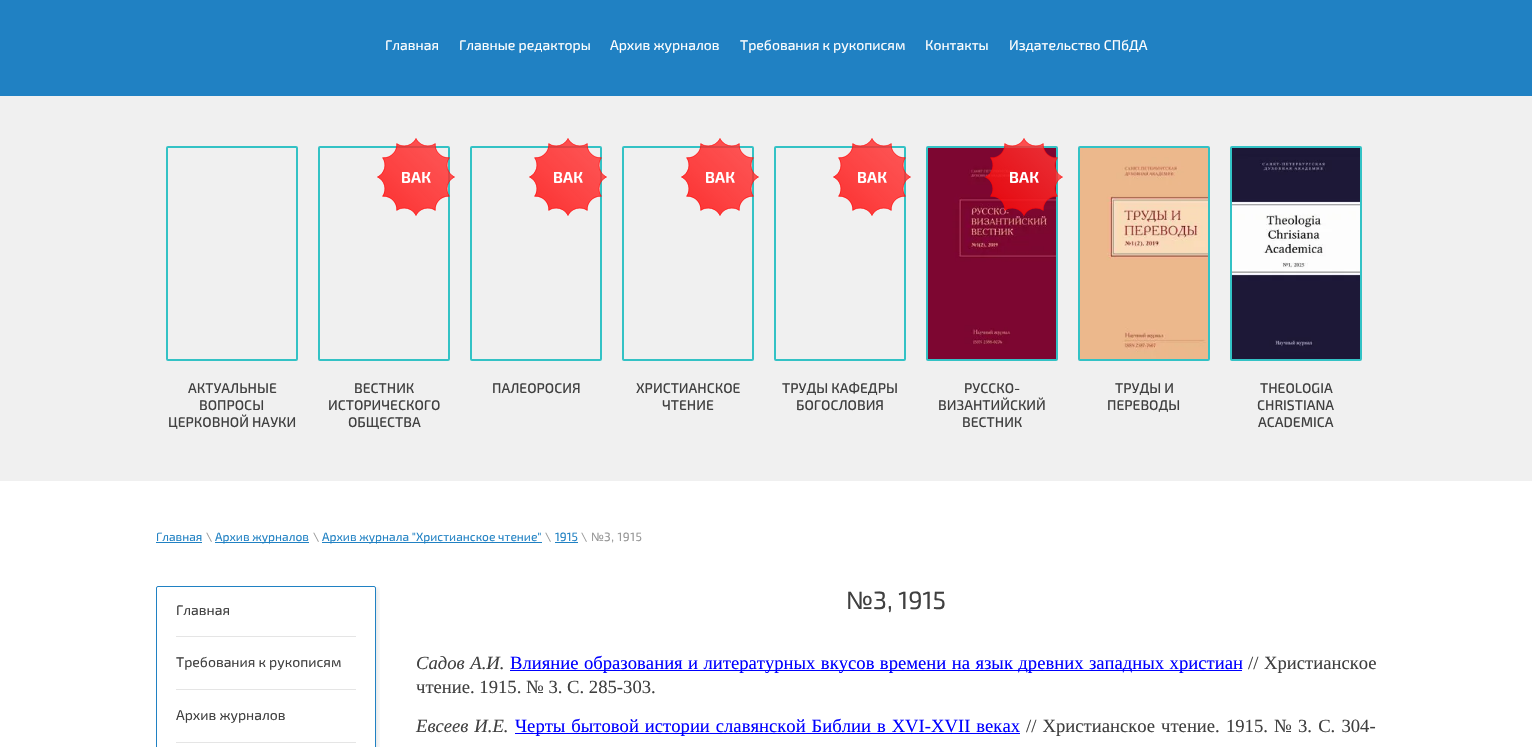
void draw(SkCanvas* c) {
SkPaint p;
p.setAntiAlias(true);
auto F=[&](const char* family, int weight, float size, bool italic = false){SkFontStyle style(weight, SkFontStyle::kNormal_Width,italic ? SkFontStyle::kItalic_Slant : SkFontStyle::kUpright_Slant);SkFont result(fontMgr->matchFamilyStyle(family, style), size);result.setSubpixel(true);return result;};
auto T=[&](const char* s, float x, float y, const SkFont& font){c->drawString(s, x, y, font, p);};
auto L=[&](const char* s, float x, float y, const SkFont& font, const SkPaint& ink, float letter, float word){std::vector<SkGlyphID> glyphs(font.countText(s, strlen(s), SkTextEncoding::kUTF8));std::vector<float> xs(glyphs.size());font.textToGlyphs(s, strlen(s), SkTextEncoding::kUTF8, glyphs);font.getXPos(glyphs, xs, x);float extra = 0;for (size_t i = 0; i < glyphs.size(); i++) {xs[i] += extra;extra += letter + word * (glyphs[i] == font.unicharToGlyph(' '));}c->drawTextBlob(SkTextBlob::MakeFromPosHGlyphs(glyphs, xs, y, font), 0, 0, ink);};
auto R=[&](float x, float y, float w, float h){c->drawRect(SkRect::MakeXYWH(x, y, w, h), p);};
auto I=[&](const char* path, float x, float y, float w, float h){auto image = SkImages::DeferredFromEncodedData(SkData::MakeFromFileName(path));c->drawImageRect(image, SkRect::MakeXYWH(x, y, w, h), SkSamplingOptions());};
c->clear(0xffffffff);
p.setColor(0xff2081c3);
R(0,0,1532,96);
auto f1 = F("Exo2",400,14);
p.setColor(0xffffffff);
T("Главная",385,50,f1);
T("Главные редакторы",459,50,f1);
T("Архив журналов",610,50,f1);
T("Требования к рукописям",740,50,f1);
T("Контакты",925,50,f1);
T("Издательство СПбДА",1009,50,f1);
p.setColor(0xfff0f0f0);
R(0,96,1532,385);
p.setStroke(true);
p.setStrokeWidth(2);
p.setColor(0xff33c2c5);
c->drawRoundRect(SkRect::MakeXYWH(167,147,130,213),1,1,p);
auto f2 = F("Exo 2",500,14);
p.setStroke(false);
p.setColor(0xff404040);
T("АКТУАЛЬНЫЕ",188,393,f2);
T("ВОПРОСЫ",199,410,f2);
T("ЦЕРКОВНОЙ НАУКИ",168,427,f2);
p.setStroke(true);
p.setColor(0xff33c2c5);
c->drawRoundRect(SkRect::MakeXYWH(319,147,130,213),1,1,p);
I("1.png",377,138,78,78);
p.setStroke(false);
p.setColor(0xff404040);
T("ВЕСТНИК",354,393,f2);
T("ИСТОРИЧЕСКОГО",328,410,f2);
T("ОБЩЕСТВА",348,427,f2);
p.setStroke(true);
p.setColor(0xff33c2c5);
c->drawRoundRect(SkRect::MakeXYWH(471,147,130,213),1,1,p);
I("1.png",529,138,78,78);
p.setStroke(false);
p.setColor(0xff404040);
T("ПАЛЕОРОСИЯ",492,393,f2);
p.setStroke(true);
p.setColor(0xff33c2c5);
c->drawRoundRect(SkRect::MakeXYWH(623,147,130,213),1,1,p);
I("1.png",681,138,78,78);
p.setStroke(false);
p.setColor(0xff404040);
T("ХРИСТИАНСКОЕ",636,393,f2);
T("ЧТЕНИЕ",662,410,f2);
p.setStroke(true);
p.setColor(0xff33c2c5);
c->drawRoundRect(SkRect::MakeXYWH(775,147,130,213),1,1,p);
I("1.png",833,138,78,78);
p.setStroke(false);
p.setColor(0xff404040);
T("ТРУДЫ КАФЕДРЫ",782,393,f2);
T("БОГОСЛОВИЯ",796,410,f2);
p.setStroke(true);
p.setColor(0xff33c2c5);
c->drawRoundRect(SkRect::MakeXYWH(927,147,130,213),1,1,p);
I("3.png",928,148,128,211);
I("2.png",985,138,78,78);
p.setStroke(false);
p.setColor(0xff404040);
T("РУССКО-",964,393,f2);
T("ВИЗАНТИЙСКИЙ",938,410,f2);
T("ВЕСТНИК",962,427,f2);
p.setStroke(true);
p.setColor(0xff33c2c5);
c->drawRoundRect(SkRect::MakeXYWH(1079,147,130,213),1,1,p);
I("4.png",1080,148,128,211);
p.setStroke(false);
p.setColor(0xff404040);
T("ТРУДЫ И",1115,393,f2);
T("ПЕРЕВОДЫ",1107,410,f2);
p.setStroke(true);
p.setColor(0xff33c2c5);
c->drawRoundRect(SkRect::MakeXYWH(1231,147,130,213),1,1,p);
I("5.png",1232,148,128,211);
p.setStroke(false);
p.setColor(0xff404040);
T("THEOLOGIA",1260,393,f2);
T("CHRISTIANA",1257,410,f2);
T("ACADEMICA",1258,427,f2);
auto f3 = F("Exo2",400,12);
p.setColor(0xff2081c3);
T("Главная",156,541,f3);
R(156,542,46,1);
p.setColor(0xff959595);
L("\\",206,541,f3,p,.5,0);
p.setColor(0xff2081c3);
R(215,542,94,1);
T("Архив журналов",215,541,f3);
p.setColor(0xff959595);
L("\\",313,541,f3,p,.5,0);
p.setColor(0xff2081c3);
R(322,542,220,1);
T("Архив журнала \"Христианское чтение\"",322,541,f3);
p.setColor(0xff959595);
L("\\",545,541,f3,p,.5,0);
p.setColor(0xff2081c3);
T("1915",555,541,f3);
R(555,542,23,1);
p.setColor(0xff959595);
L("\\",581,541,f3,p,.5,0);
auto f4 = F("Liberation Sans",400,12);
L("№",591,541,f4,p,.5,0);
L("3, 1915",604,541,f3,p,.5,0);
c->save();
c->clipRect(SkRect::MakeXYWH(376,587,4,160));
p.setColor(0x1a000000);
p.setMaskFilter(SkMaskFilter::MakeBlur(kNormal_SkBlurStyle, 2.5));
c->drawRoundRect(SkRect::MakeXYWH(158,588,220,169),2,2,p);
p.setMaskFilter(nullptr);
c->restore();
p.setStroke(true);
p.setStrokeWidth(1);
p.setColor(0xff2081c3);
c->drawRoundRect(SkRect::MakeXYWH(156.5,586.5,219,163),1.5,1.5,p);
p.setStroke(false);
p.setColor(0xff404040);
T("Главная",176,615,f1);
p.setColor(0xffe5e5e5);
R(176,636,180,1);
p.setColor(0xff404040);
T("Требования к рукописям",176,667,f1);
p.setColor(0xffe5e5e5);
R(176,689,180,1);
p.setColor(0xff404040);
T("Архив журналов",176,720,f1);
p.setColor(0xffe5e5e5);
R(176,742,180,1);
auto f5 = F("Liberation Sans",400,25);
p.setColor(0xff404040);
T("№",846,609,f5);
auto f6 = F("Exo2",400,25);
T("3, 1915",873,609,f6);
auto f7 = F("Liberation Serif",400,18.65,true);
L("Садов А.И.",416,669,f7,p,0,1);
p.setColor(0xff0000ff);
R(510,670,732,1);
auto f8 = F("Liberation Serif",400,18.65);
L("Влияние образования и литературных вкусов времени на язык древних западных христиан",510,669,f8,p,0,.75);
p.setColor(0xff404040);
L("// Христианское",1248,669,f8,p,0,1);
T("чтение. 1915. № 3. С. 285-303.",416,693,f8);
L("Евсеев И.Е.",416,732,f7,p,0,1.25);
p.setColor(0xff0000ff);
R(515,733,505,1);
L("Черты бытовой истории славянской Библии в XVI-XVII веках",515,732,f8,p,0,1.25);
p.setColor(0xff404040);
L("// Христианское чтение. 1915. № 3. С. 304-",1026,732,f8,p,0,1.5);
}
